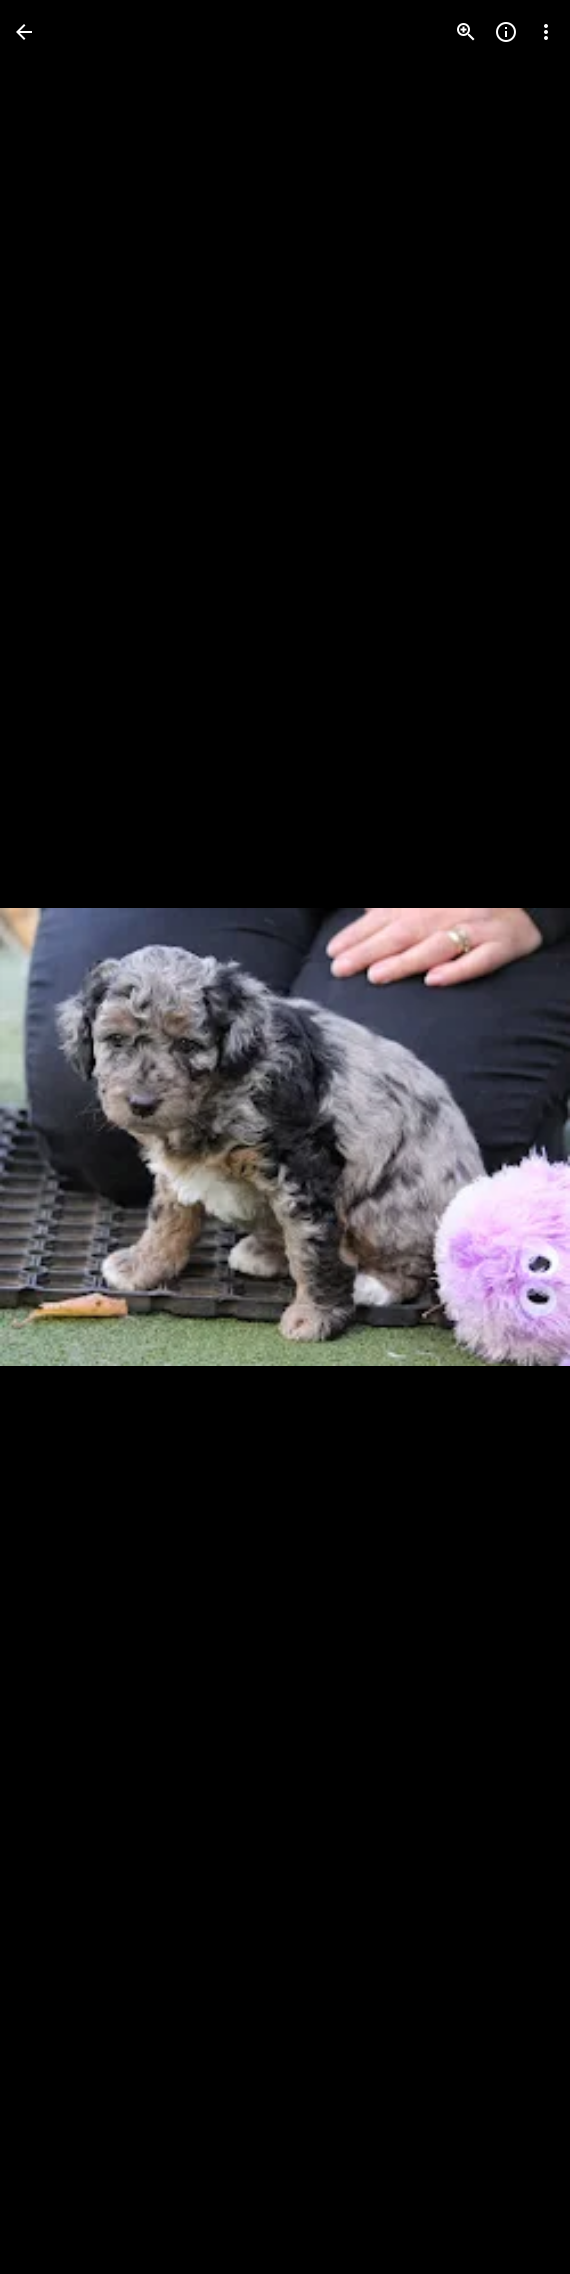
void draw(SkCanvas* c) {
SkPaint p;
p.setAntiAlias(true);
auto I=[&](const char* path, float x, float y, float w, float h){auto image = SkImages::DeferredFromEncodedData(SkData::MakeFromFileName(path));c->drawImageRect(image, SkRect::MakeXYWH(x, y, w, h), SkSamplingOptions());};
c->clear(0xff000000);
I("1.png",16,24,16,16);
I("2.png",457,23,18,18);
I("3.png",496,22,20,20);
I("4.png",544,24,4,16);
I("5.png",0,908,570,458);
}
